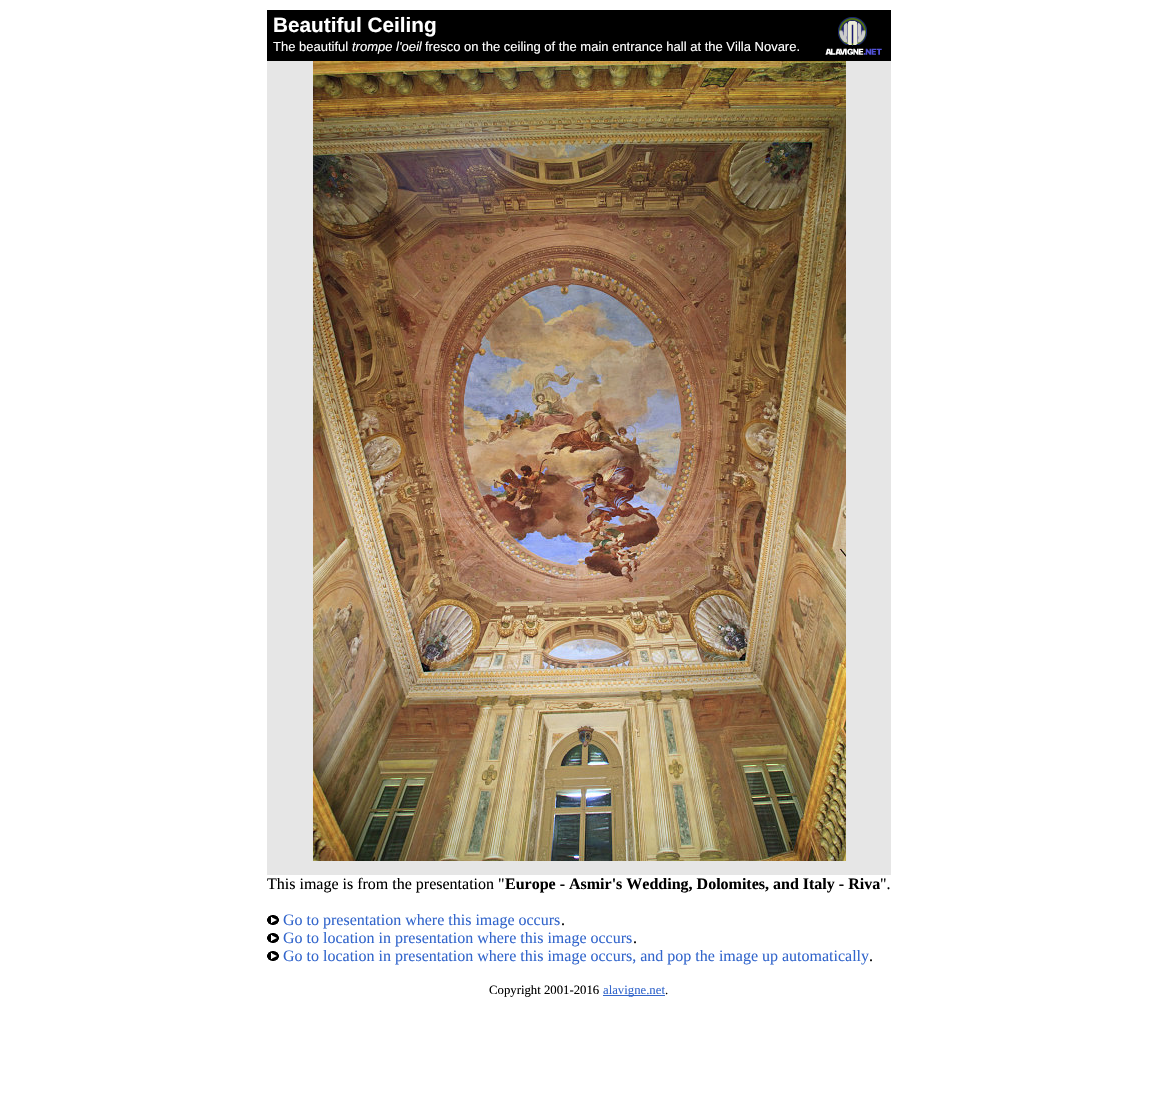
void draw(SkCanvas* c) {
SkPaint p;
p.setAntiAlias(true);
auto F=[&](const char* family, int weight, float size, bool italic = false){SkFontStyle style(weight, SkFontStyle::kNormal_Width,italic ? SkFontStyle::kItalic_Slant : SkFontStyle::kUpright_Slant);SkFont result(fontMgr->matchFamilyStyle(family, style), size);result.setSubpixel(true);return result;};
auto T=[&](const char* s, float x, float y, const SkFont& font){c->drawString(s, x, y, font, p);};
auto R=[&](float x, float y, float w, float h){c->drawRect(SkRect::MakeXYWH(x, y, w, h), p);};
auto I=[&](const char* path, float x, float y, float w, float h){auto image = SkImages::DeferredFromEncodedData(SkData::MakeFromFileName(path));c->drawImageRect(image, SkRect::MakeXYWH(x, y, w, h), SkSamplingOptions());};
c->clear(0xffffffff);
p.setColor(0xff000000);
R(267,10,624,51);
auto f1 = F("Liberation Sans",700,20.75);
p.setColor(0xffffffff);
T("Beautiful Ceiling",273,32,f1);
I("1.png",825,17,57,38);
auto f2 = F("Liberation Sans",400,13);
T("The beautiful",273,51,f2);
auto f3 = F("Liberation Sans",400,13,true);
T("trompe l'oeil",352,51,f3);
T("fresco on the ceiling of the main entrance hall at the Villa Novare.",425,51,f2);
p.setColor(0xffe6e6e6);
R(267,61,624,814);
I("2.png",313,61,533,800);
auto f4 = F("Liberation Serif",400,16);
p.setColor(0xff000000);
T("This image is from the presentation \"",267,889,f4);
auto f5 = F("Liberation Serif",700,16);
T("Europe - Asmir's Wedding, Dolomites, and Italy - Riva",505,889,f5);
T("\".",880,889,f4);
I("3.png",267,915,12,10);
p.setColor(0xff3366cc);
T("Go to presentation where this image occurs",283,925,f4);
p.setColor(0xff000000);
T(".",561,925,f4);
I("3.png",267,933,12,10);
p.setColor(0xff3366cc);
T("Go to location in presentation where this image occurs",283,943,f4);
p.setColor(0xff000000);
T(".",633,943,f4);
I("3.png",267,951,12,10);
p.setColor(0xff3366cc);
T("Go to location in presentation where this image occurs, and pop the image up automatically",283,961,f4);
p.setColor(0xff000000);
T(".",869,961,f4);
auto f6 = F("Liberation Serif",400,12.75);
T("Copyright 2001-2016",489,994,f6);
p.setColor(0xff3366cc);
R(603,995,62,1);
T("alavigne.net",603,994,f6);
p.setColor(0xff000000);
T(".",665,994,f6);
}
